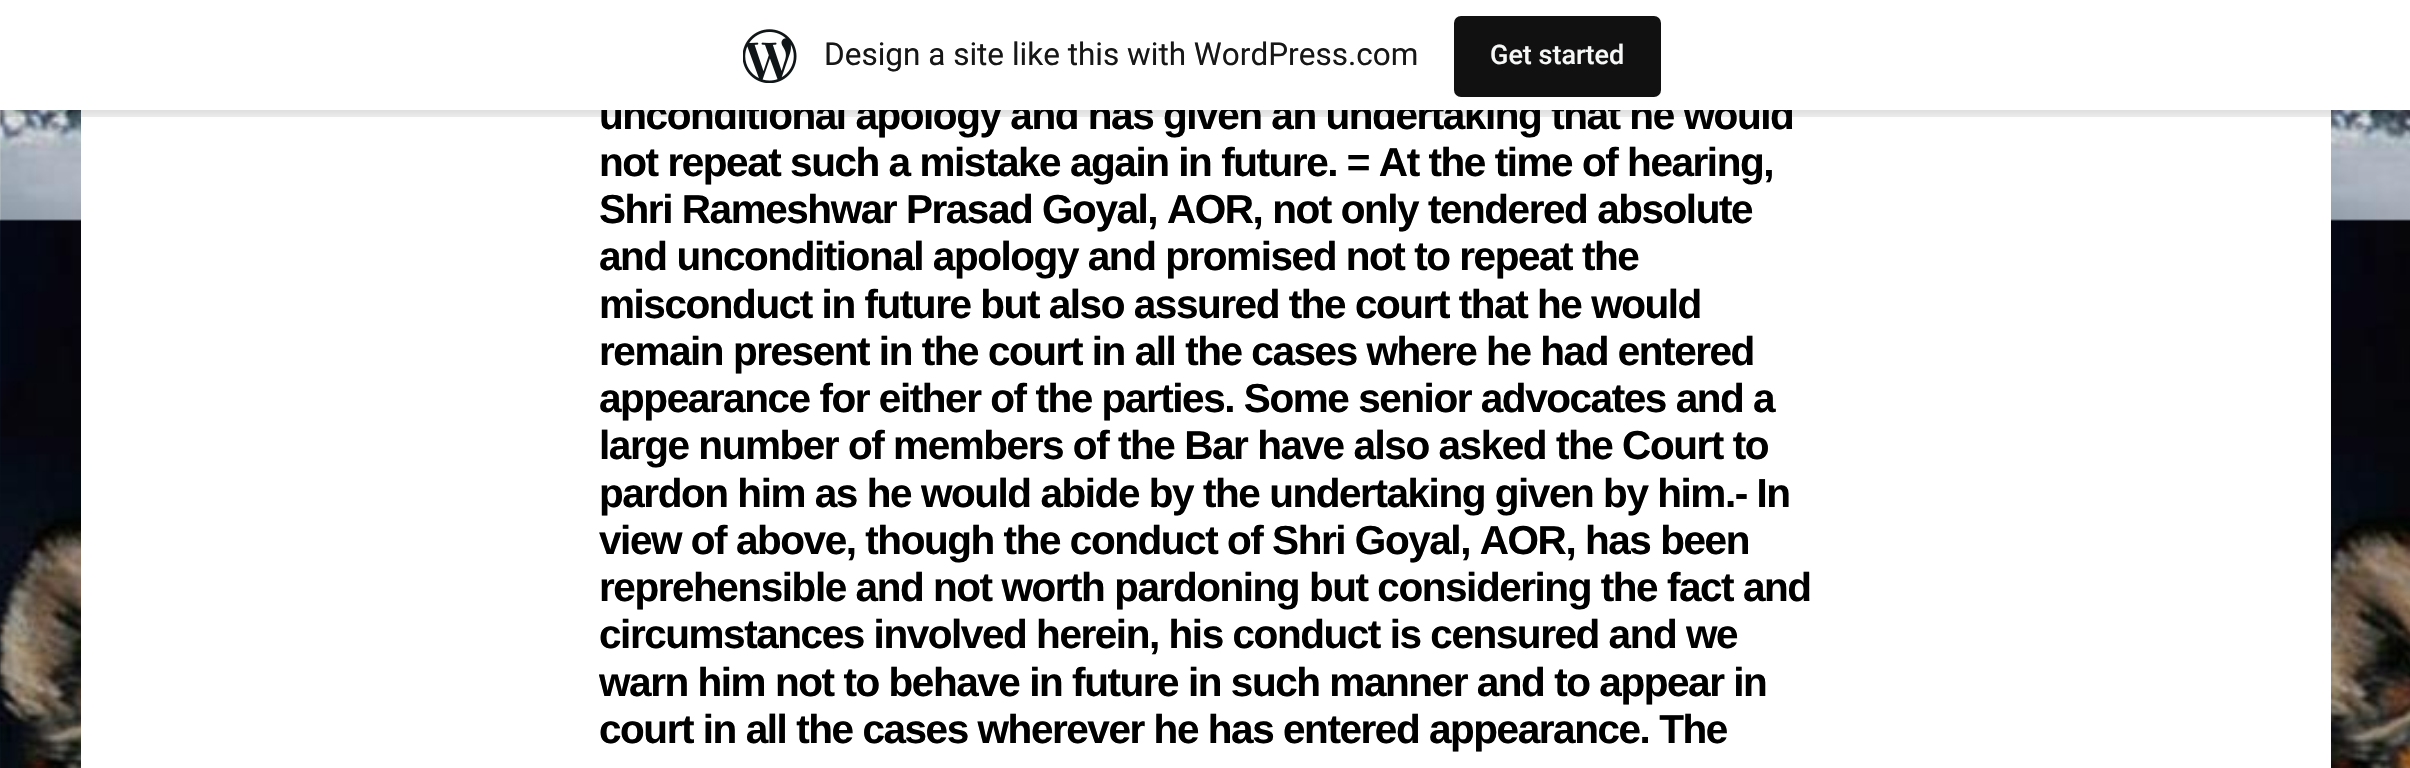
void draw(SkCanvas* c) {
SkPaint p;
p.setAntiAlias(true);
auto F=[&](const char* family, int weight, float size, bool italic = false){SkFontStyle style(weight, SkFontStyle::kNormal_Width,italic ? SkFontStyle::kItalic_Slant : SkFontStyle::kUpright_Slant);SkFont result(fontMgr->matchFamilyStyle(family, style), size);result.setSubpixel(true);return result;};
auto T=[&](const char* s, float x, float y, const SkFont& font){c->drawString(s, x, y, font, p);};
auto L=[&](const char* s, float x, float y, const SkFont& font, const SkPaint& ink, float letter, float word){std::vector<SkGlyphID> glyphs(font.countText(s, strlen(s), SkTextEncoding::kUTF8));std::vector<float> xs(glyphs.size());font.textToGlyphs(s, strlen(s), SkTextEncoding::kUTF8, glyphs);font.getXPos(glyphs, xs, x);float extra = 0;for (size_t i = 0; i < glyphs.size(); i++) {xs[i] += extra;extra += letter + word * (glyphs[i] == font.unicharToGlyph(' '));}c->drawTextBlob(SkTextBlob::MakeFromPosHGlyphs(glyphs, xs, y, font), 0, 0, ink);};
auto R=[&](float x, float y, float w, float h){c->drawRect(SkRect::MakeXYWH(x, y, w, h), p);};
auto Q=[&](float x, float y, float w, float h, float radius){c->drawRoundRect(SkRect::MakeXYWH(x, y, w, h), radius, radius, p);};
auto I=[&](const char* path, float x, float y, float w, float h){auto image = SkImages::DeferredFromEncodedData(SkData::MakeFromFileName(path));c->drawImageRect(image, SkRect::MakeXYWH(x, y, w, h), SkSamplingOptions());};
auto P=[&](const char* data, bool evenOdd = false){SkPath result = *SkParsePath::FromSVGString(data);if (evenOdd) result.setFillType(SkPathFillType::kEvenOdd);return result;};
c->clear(0xffffffff);
I("1.png",0,110,2410,658);
p.setColor(0xffffffff);
R(81,110,2250,658);
p.setColor(0x0d000000);
p.setMaskFilter(SkMaskFilter::MakeBlur(kNormal_SkBlurStyle, 2));
c->drawRect(SkRect::MakeXYWH(0,2,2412,111),p);
p.setMaskFilter(nullptr);
p.setColor(0x14000000);
c->drawPath(P("M2 110v7h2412v-110h-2v103z"),p);
auto f1 = F("Liberation Sans",700,40.5);
p.setColor(0xff000000);
L("unconditional apology and has given an undertaking that he would",599,129,f1,p,-1.45,0);
p.setColor(0xffffffff);
R(0,0,2410,110);
I("2.png",743,29,54,54);
auto f2 = F("Roboto",400,31.5);
p.setColor(0xff171717);
T("Design a site like this with WordPress.com",824,65,f2);
p.setColor(0xff111111);
Q(1454,16,207,81,7);
auto f3 = F("Roboto",500,27);
p.setColor(0xfff6f7f7);
T("Get started",1490,64,f3);
p.setColor(0xff000000);
L("not repeat such a mistake again in future. = At the time of hearing,",599,176,f1,p,-1.45,0);
L("Shri Rameshwar Prasad Goyal, AOR, not only tendered absolute",599,223,f1,p,-1.45,0);
L("and unconditional apology and promised not to repeat the",599,270,f1,p,-1.45,0);
L("misconduct in future but also assured the court that he would",599,318,f1,p,-1.45,0);
L("remain present in the court in all the cases where he had entered",599,365,f1,p,-1.45,0);
L("appearance for either of the parties. Some senior advocates and a",599,412,f1,p,-1.45,0);
L("large number of members of the Bar have also asked the Court to",599,459,f1,p,-1.45,0);
L("pardon him as he would abide by the undertaking given by him.- In",599,507,f1,p,-1.45,0);
L("view of above, though the conduct of Shri Goyal, AOR, has been",599,554,f1,p,-1.45,0);
L("reprehensible and not worth pardoning but considering the fact and",599,601,f1,p,-1.45,0);
L("circumstances involved herein, his conduct is censured and we",599,648,f1,p,-1.45,0);
L("warn him not to behave in future in such manner and to appear in",599,696,f1,p,-1.45,0);
L("court in all the cases wherever he has entered appearance. The",599,743,f1,p,-1.45,0);
}
